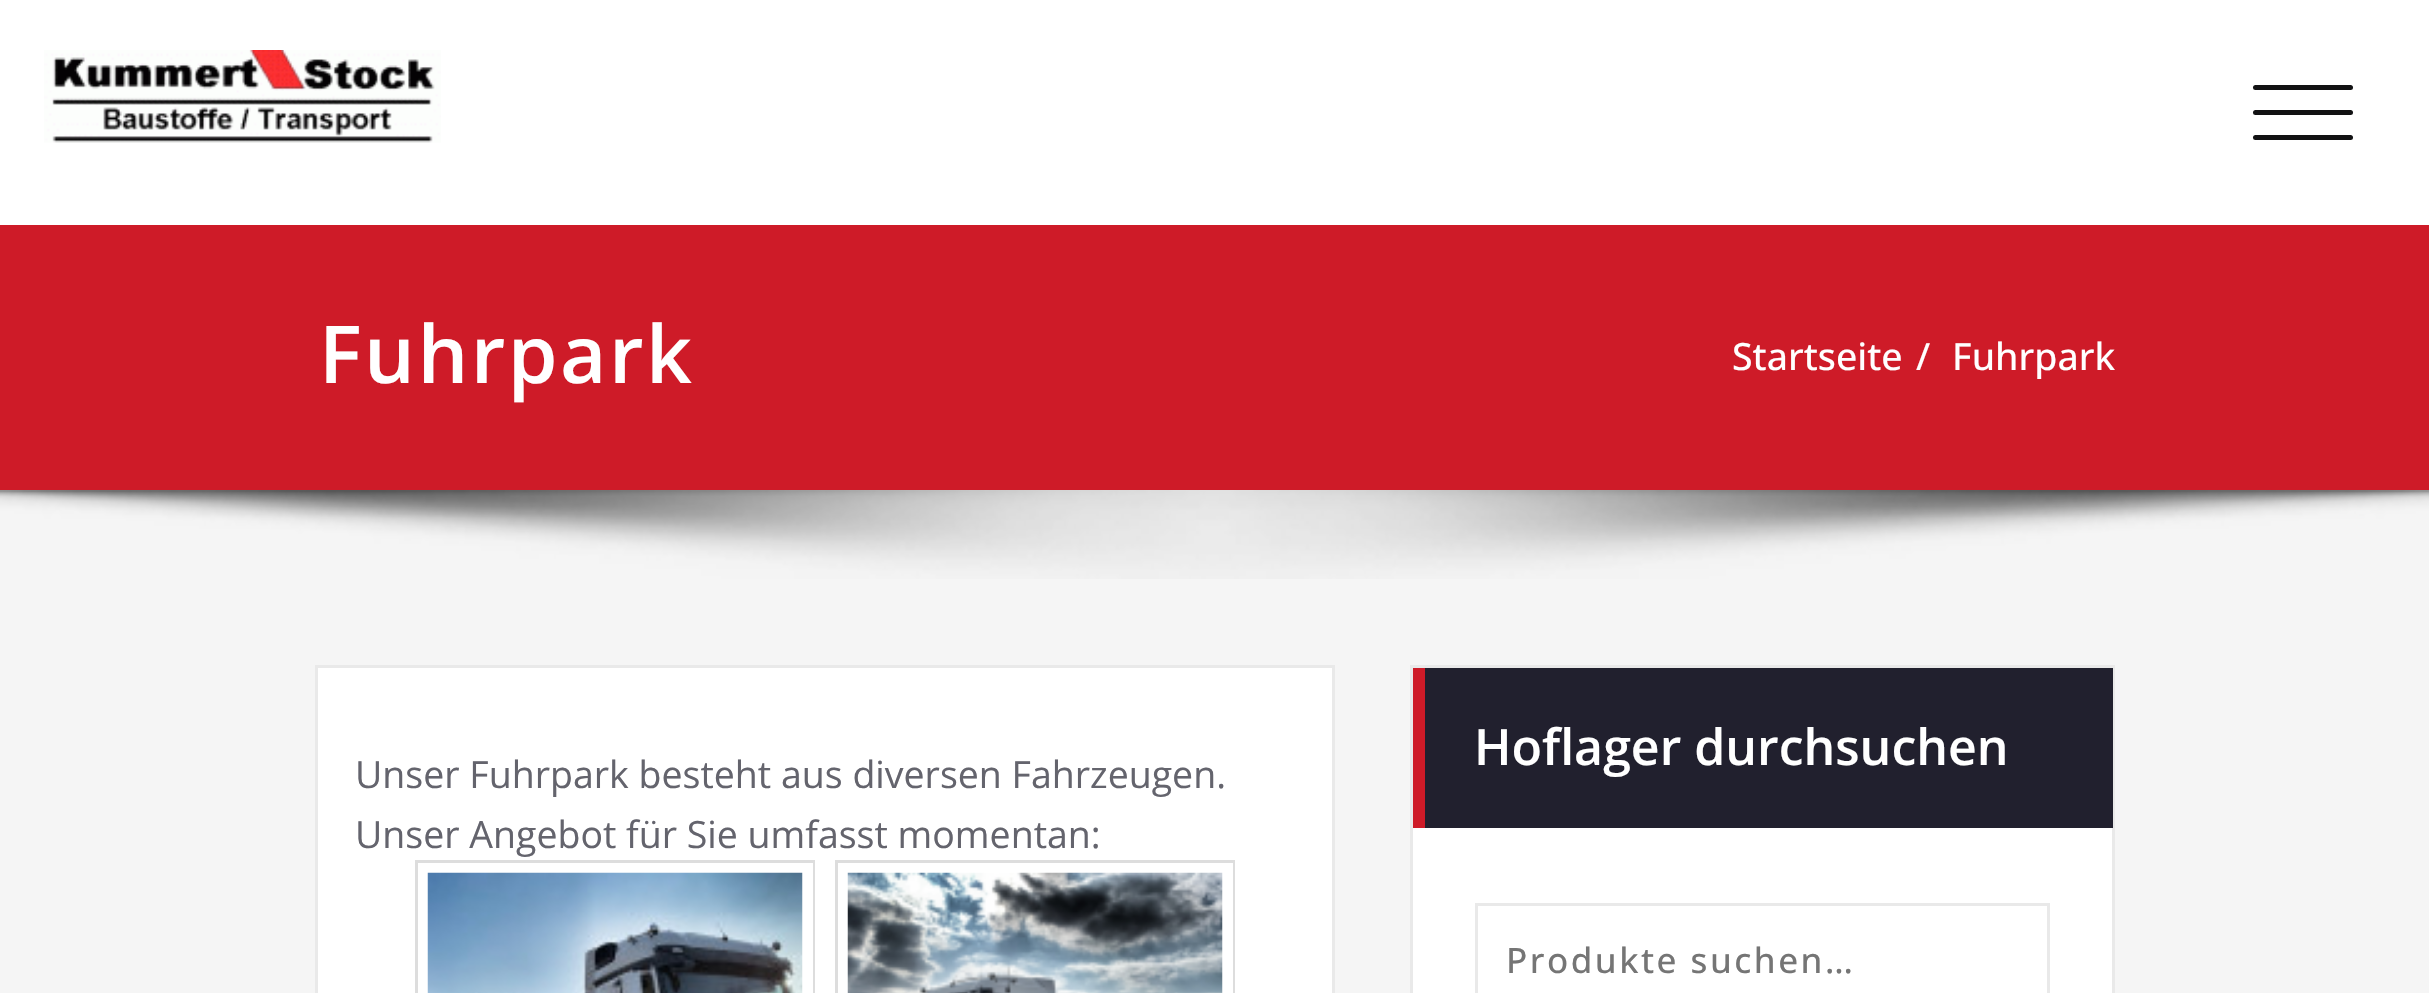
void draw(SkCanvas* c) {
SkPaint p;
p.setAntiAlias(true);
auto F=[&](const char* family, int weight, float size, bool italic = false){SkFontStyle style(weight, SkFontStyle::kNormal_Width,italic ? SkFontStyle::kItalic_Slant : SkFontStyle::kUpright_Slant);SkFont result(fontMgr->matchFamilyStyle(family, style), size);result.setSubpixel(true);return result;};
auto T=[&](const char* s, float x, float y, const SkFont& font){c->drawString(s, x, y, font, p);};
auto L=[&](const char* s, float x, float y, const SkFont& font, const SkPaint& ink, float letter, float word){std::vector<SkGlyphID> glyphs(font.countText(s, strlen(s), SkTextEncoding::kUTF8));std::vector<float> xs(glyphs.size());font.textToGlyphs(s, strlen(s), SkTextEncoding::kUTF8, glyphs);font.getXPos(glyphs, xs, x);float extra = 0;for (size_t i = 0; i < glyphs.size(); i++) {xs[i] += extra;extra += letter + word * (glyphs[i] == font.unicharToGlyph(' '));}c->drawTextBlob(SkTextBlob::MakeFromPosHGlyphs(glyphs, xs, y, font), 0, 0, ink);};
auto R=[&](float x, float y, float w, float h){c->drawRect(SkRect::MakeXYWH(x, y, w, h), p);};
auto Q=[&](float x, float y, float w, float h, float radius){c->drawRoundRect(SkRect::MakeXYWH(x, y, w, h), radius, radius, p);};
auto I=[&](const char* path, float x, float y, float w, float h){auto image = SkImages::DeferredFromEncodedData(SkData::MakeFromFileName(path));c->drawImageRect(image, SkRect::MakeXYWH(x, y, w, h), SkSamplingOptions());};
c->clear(0xfff5f5f5);
p.setColor(0xffffffff);
R(0,0,2429,225);
I("1.png",44,50,397,93);
p.setColor(0xff121213);
Q(2253,85,100,5,2.5);
Q(2253,110,100,5,2.5);
Q(2253,135,100,5,2.5);
p.setColor(0xffce1b28);
R(0,225,2429,265);
auto f1 = F("Open Sans",600,80);
p.setColor(0xffffffff);
L("Fuhrpark",319,383,f1,p,2.5,0);
auto f2 = F("Open Sans",500,37.5);
T("Startseite",1732,370,f2);
T("/",1916,370,f2);
T("Fuhrpark",1952,370,f2);
I("2.png",0,490,2429,89);
c->drawRect(SkRect::MakeXYWH(316.5,666.5,1017,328),p);
p.setStroke(true);
p.setStrokeWidth(3);
p.setColor(0xffe9e9e9);
c->drawRect(SkRect::MakeXYWH(316.5,666.5,1017,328),p);
auto f3 = F("Open Sans",400,37.5);
p.setStroke(false);
p.setColor(0xff64646d);
T("Unser Fuhrpark besteht aus diversen Fahrzeugen.",355,788,f3);
T("Unser Angebot für Sie umfasst momentan:",355,848,f3);
p.setStroke(true);
p.setColor(0xffdddddd);
c->drawRect(SkRect::MakeXYWH(416.5,861.5,397,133),p);
p.setStroke(false);
p.setColor(0xffffffff);
R(812,863,1,130);
I("3.png",427,872,376,121);
p.setStroke(true);
p.setColor(0xffdddddd);
c->drawRect(SkRect::MakeXYWH(836.5,861.5,397,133),p);
p.setStroke(false);
p.setColor(0xffffffff);
R(1232,863,1,130);
I("4.png",847,872,376,121);
R(1413,828,699,165);
p.setStroke(true);
p.setColor(0xffe9e9e9);
c->drawRect(SkRect::MakeXYWH(1411.5,666.5,702,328),p);
p.setStroke(false);
p.setColor(0xff21202e);
R(1425,668,688,160);
p.setColor(0xffce1b28);
R(1413,668,12,160);
auto f4 = F("Open Sans",600,50);
p.setColor(0xffffffff);
T("Hoflager durchsuchen",1474,765,f4);
p.setStroke(true);
p.setColor(0xffe9e9e9);
c->drawRect(SkRect::MakeXYWH(1476.5,904.5,572,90),p);
auto f5 = F("Open Sans",500,35);
p.setStroke(false);
p.setColor(0xff757575);
L("Produkte suchen…",1506,973,f5,p,2.5,0);
}
